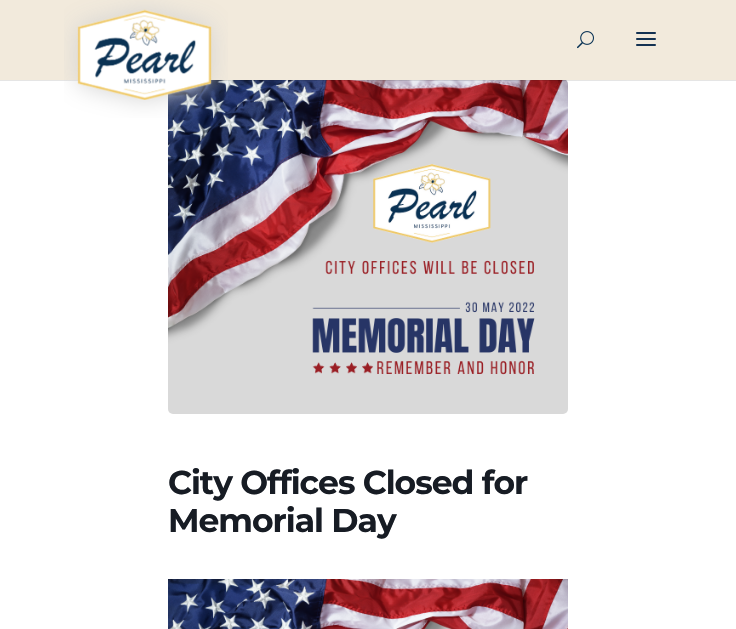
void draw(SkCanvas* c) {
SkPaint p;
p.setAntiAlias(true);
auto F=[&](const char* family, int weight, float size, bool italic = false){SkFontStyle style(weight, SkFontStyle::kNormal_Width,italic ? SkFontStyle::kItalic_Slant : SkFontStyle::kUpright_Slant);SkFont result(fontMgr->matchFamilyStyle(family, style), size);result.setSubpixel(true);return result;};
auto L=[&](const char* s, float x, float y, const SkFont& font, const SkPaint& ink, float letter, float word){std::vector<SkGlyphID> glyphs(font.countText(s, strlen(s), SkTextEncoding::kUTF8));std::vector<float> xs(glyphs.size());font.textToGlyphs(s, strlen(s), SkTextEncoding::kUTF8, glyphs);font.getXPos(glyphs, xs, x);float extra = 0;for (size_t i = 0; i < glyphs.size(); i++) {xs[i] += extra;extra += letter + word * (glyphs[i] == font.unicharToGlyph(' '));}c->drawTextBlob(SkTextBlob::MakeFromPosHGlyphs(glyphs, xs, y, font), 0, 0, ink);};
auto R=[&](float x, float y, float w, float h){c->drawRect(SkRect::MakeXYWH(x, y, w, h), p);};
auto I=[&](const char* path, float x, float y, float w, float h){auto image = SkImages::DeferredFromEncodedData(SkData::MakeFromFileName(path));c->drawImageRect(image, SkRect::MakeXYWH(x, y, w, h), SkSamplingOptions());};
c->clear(0xffffffff);
I("4.png",168,80,400,334);
p.setColor(0x1a000000);
R(0,80,736,1);
p.setColor(0xfff2eadc);
R(0,0,736,80);
I("1.png",64,0,164,118);
I("2.png",577,31,17,18);
I("3.png",636,32,20,14);
auto f1 = F("Montserrat",700,33);
p.setColor(0xff171c24);
L("City Offices Closed for",168,494,f1,p,-1,0);
L("Memorial Day",168,532,f1,p,-1,0);
I("5.png",168,579,400,50);
}
